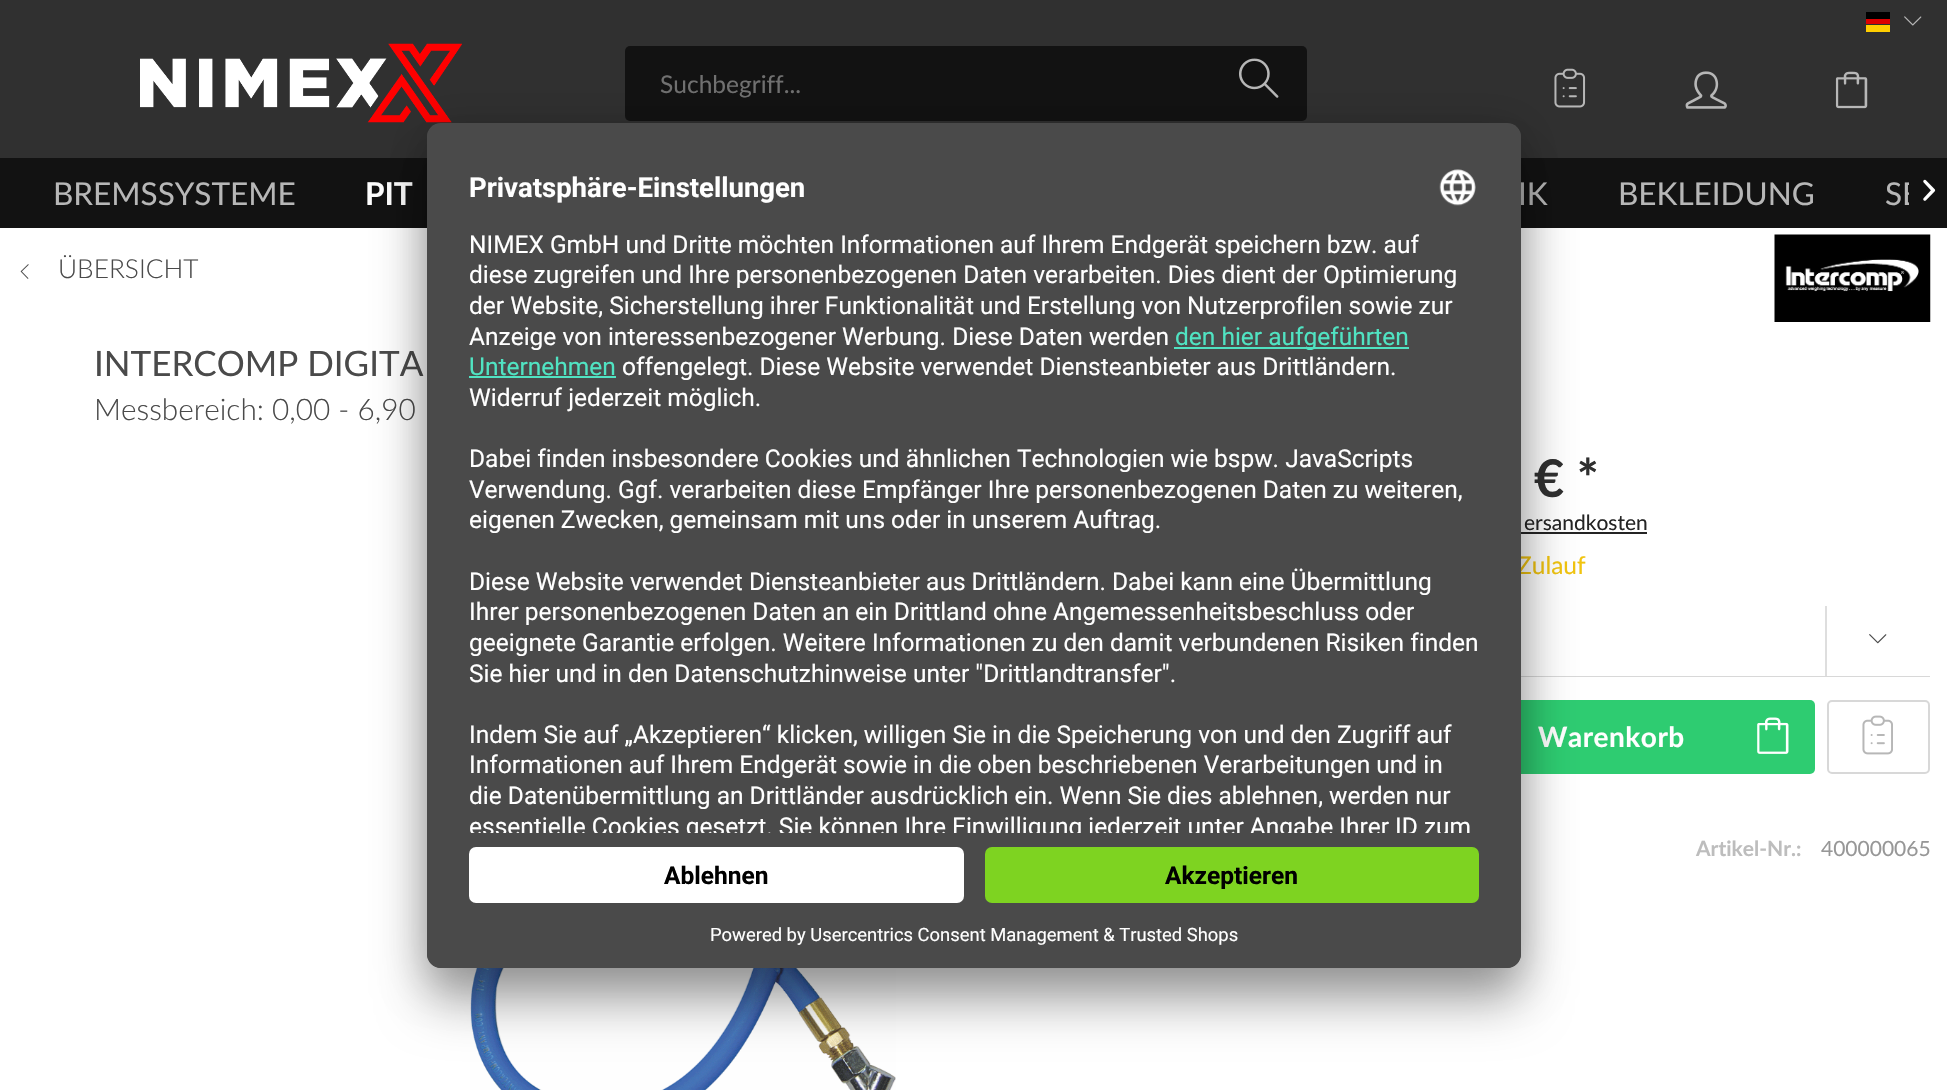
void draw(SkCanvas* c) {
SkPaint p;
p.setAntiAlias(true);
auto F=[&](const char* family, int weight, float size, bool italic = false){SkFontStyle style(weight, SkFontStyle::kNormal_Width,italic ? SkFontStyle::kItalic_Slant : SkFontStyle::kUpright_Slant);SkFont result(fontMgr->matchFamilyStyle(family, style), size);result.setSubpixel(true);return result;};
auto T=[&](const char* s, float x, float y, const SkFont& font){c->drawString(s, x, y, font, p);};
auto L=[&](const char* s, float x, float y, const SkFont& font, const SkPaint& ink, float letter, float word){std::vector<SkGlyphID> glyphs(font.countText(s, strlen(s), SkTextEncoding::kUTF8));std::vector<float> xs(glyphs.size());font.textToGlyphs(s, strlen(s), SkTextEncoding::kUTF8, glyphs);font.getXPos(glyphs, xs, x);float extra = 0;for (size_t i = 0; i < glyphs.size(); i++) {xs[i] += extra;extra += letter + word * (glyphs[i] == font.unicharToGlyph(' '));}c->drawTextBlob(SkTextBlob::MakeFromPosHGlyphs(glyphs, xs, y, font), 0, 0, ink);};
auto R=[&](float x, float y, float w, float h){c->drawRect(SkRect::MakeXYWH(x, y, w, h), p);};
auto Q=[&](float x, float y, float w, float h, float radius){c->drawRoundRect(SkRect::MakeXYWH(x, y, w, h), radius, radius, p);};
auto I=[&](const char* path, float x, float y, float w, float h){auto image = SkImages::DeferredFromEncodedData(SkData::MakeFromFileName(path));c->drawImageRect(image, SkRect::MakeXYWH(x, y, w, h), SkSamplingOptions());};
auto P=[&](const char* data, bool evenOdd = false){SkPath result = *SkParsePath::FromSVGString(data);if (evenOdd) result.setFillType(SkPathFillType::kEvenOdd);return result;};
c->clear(0xffffffff);
p.setColor(0xff303030);
R(0,0,1947,158);
p.setColor(0xff000000);
R(1866,12,24,7);
p.setColor(0xffdd0000);
R(1866,19,24,5);
p.setColor(0xffffce00);
R(1866,25,24,7);
I("1.png",1904,16,18,10);
I("2.png",140,43,322,80);
p.setColor(0xff121212);
Q(625,46,682,75,5);
auto f1 = F("Lato",400,24.5);
p.setColor(0xff707070);
T("Suchbegriff...",660,93,f1);
I("3.png",1239,58,40,40);
I("4.png",1554,68,32,40);
I("5.png",1685,71,42,38);
I("6.png",1835,71,33,38);
p.setColor(0xff121212);
R(0,158,1947,70);
auto f2 = F("Lato",400,31.5);
p.setColor(0xffb7b7b7);
T("BREMSSYSTEME",53,205,f2);
auto f3 = F("Lato",700,31.5);
p.setColor(0xffffffff);
T("PIT",365,205,f3);
p.setColor(0xffb7b7b7);
T("IK",1518,205,f2);
T("BEKLEIDUNG",1618,205,f2);
T("SE",1885,205,f2);
p.setColor(0xff121212);
c->drawPath(P("M1914 159h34v65h-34c-3 0-5-2-5-5v-55c0-3 2-5 5-5z"),p);
I("7.png",1923,179,13,22);
I("8.png",20,264,9,15);
auto f4 = F("Lato",300,26.25);
p.setColor(0xff4a4a4a);
T("ÜBERSICHT",58,278,f4);
I("9.png",1774,234,157,88);
auto f5 = F("Lato",400,35);
T("INTERCOMP DIGITA",94,376,f5);
auto f6 = F("Lato",300,29.75);
T("Messbereich: 0,00 - 6,90",94,420,f6);
auto f7 = F("Lato",700,52);
p.setColor(0xff303030);
T("€ *",1534,497,f7);
auto f8 = F("Lato",400,21);
p.setColor(0xff242424);
T("ersandkosten",1524,530,f8);
R(1521,532,126,2);
p.setColor(0xfff1c40f);
T("Zulauf",1517,574,f1);
p.setColor(0xffdedede);
R(1825,606,2,70);
I("10.png",1869,634,18,10);
p.setColor(0xffd8d8d8);
R(1521,676,409,1);
p.setColor(0xff2ecc71);
Q(1356,700,459,74,5);
auto f9 = F("Lato",700,28);
p.setColor(0xffffffff);
L("Warenkorb",1538,747,f9,p,.5,0);
I("11.png",1757,717,32,37);
p.setStroke(true);
p.setStrokeWidth(2);
p.setColor(0xffd8d8d8);
c->drawRoundRect(SkRect::MakeXYWH(1828,701,101,72),4,4,p);
I("12.png",1862,715,31,40);
auto f10 = F("Lato",700,21);
p.setStroke(false);
p.setColor(0xffbdbdbd);
T("Artikel-Nr.:",1696,856,f10);
p.setColor(0xff979797);
T("400000065",1821,856,f8);
I("13.png",470,968,426,122);
p.setColor(0x4d000000);
p.setMaskFilter(SkMaskFilter::MakeBlur(kNormal_SkBlurStyle, 24.5));
c->drawRoundRect(SkRect::MakeXYWH(427,158,1094,845),14,14,p);
p.setMaskFilter(nullptr);
p.setColor(0x38000000);
p.setMaskFilter(SkMaskFilter::MakeBlur(kNormal_SkBlurStyle, 23));
c->drawRoundRect(SkRect::MakeXYWH(427,131,1094,846),14,14,p);
p.setMaskFilter(nullptr);
p.setColor(0xff4a4a4a);
Q(427,123,1094,845,14);
c->save();
c->clipPath(P("M441 123h1066c7.5 0 14 6.5 14 14v817c0 7.5-6.5 14-14 14h-1066c-7.5 0-14-6.5-14-14v-817c0-7.5 6.5-14 14-14z"),true);
c->clipPath(P("M441 123h1066c7.5 0 14 6.5 14 14v696h-1094v-696c0-7.5 6.5-14 14-14z"),true);
R(427,124,1094,709);
c->restore();
auto f11 = F("Roboto",700,27.5);
p.setColor(0xffffffff);
T("Privatsphäre-Einstellungen",469,197,f11);
I("14.png",1439,169,37,37);
auto f12 = F("Roboto",400,24.5);
T("NIMEX GmbH und Dritte möchten Informationen auf Ihrem Endgerät speichern bzw. auf",469,253,f12);
T("diese zugreifen und Ihre personenbezogenen Daten verarbeiten. Dies dient der Optimierung",469,283,f12);
T("der Website, Sicherstellung ihrer Funktionalität und Erstellung von Nutzerprofilen sowie zur",469,314,f12);
T("Anzeige von interessenbezogener Werbung. Diese Daten werden",469,345,f12);
p.setColor(0xff50e3c2);
R(1174,347,235,2);
T("den hier aufgeführten",1175,345,f12);
T("Unternehmen",469,375,f12);
R(469,376,147,2);
p.setColor(0xffffffff);
T("offengelegt. Diese Website verwendet Diensteanbieter aus Drittländern.",622,375,f12);
T("Widerruf jederzeit möglich.",469,406,f12);
T("Dabei finden insbesondere Cookies und ähnlichen Technologien wie bspw. JavaScripts",469,467,f12);
T("Verwendung. Ggf. verarbeiten diese Empfänger Ihre personenbezogenen Daten zu weiteren,",469,498,f12);
T("eigenen Zwecken, gemeinsam mit uns oder in unserem Auftrag.",469,528,f12);
T("Diese Website verwendet Diensteanbieter aus Drittländern. Dabei kann eine Übermittlung",469,590,f12);
T("Ihrer personenbezogenen Daten an ein Drittland ohne Angemessenheitsbeschluss oder",469,620,f12);
T("geeignete Garantie erfolgen. Weitere Informationen zu den damit verbundenen Risiken finden",469,651,f12);
T("Sie hier und in den Datenschutzhinweise unter \"Drittlandtransfer\".",469,682,f12);
T("Indem Sie auf „Akzeptieren“ klicken, willigen Sie in die Speicherung von und den Zugriff auf",469,743,f12);
T("Informationen auf Ihrem Endgerät sowie in die oben beschriebenen Verarbeitungen und in",469,773,f12);
T("die Datenübermittlung an Drittländer ausdrücklich ein. Wenn Sie dies ablehnen, werden nur",469,804,f12);
c->save();
c->clipPath(P("M441 123h1066c7.5 0 14 6.5 14 14v696h-1094v-696c0-7.5 6.5-14 14-14z"),true);
T("essentielle Cookies gesetzt. Sie können Ihre Einwilligung jederzeit unter Angabe Ihrer ID zum",469,835,f12);
c->restore();
p.setColor(0xff4a4a4a);
c->drawPath(P("M427 833h1094v121c0 7.5-6.5 14-14 14h-1066c-7.5 0-14-6.5-14-14z"),p);
p.setColor(0xffffffff);
Q(469,847,495,56,7);
auto f13 = F("Roboto",700,24.5);
p.setColor(0xff000000);
T("Ablehnen",664,884,f13);
p.setColor(0xff7ed321);
Q(985,847,494,56,7);
p.setColor(0xff000000);
T("Akzeptieren",1165,884,f13);
auto f14 = F("Roboto",400,18.4);
p.setColor(0xffffffff);
T("Powered by Usercentrics Consent Management & Trusted Shops",710,941,f14);
}
